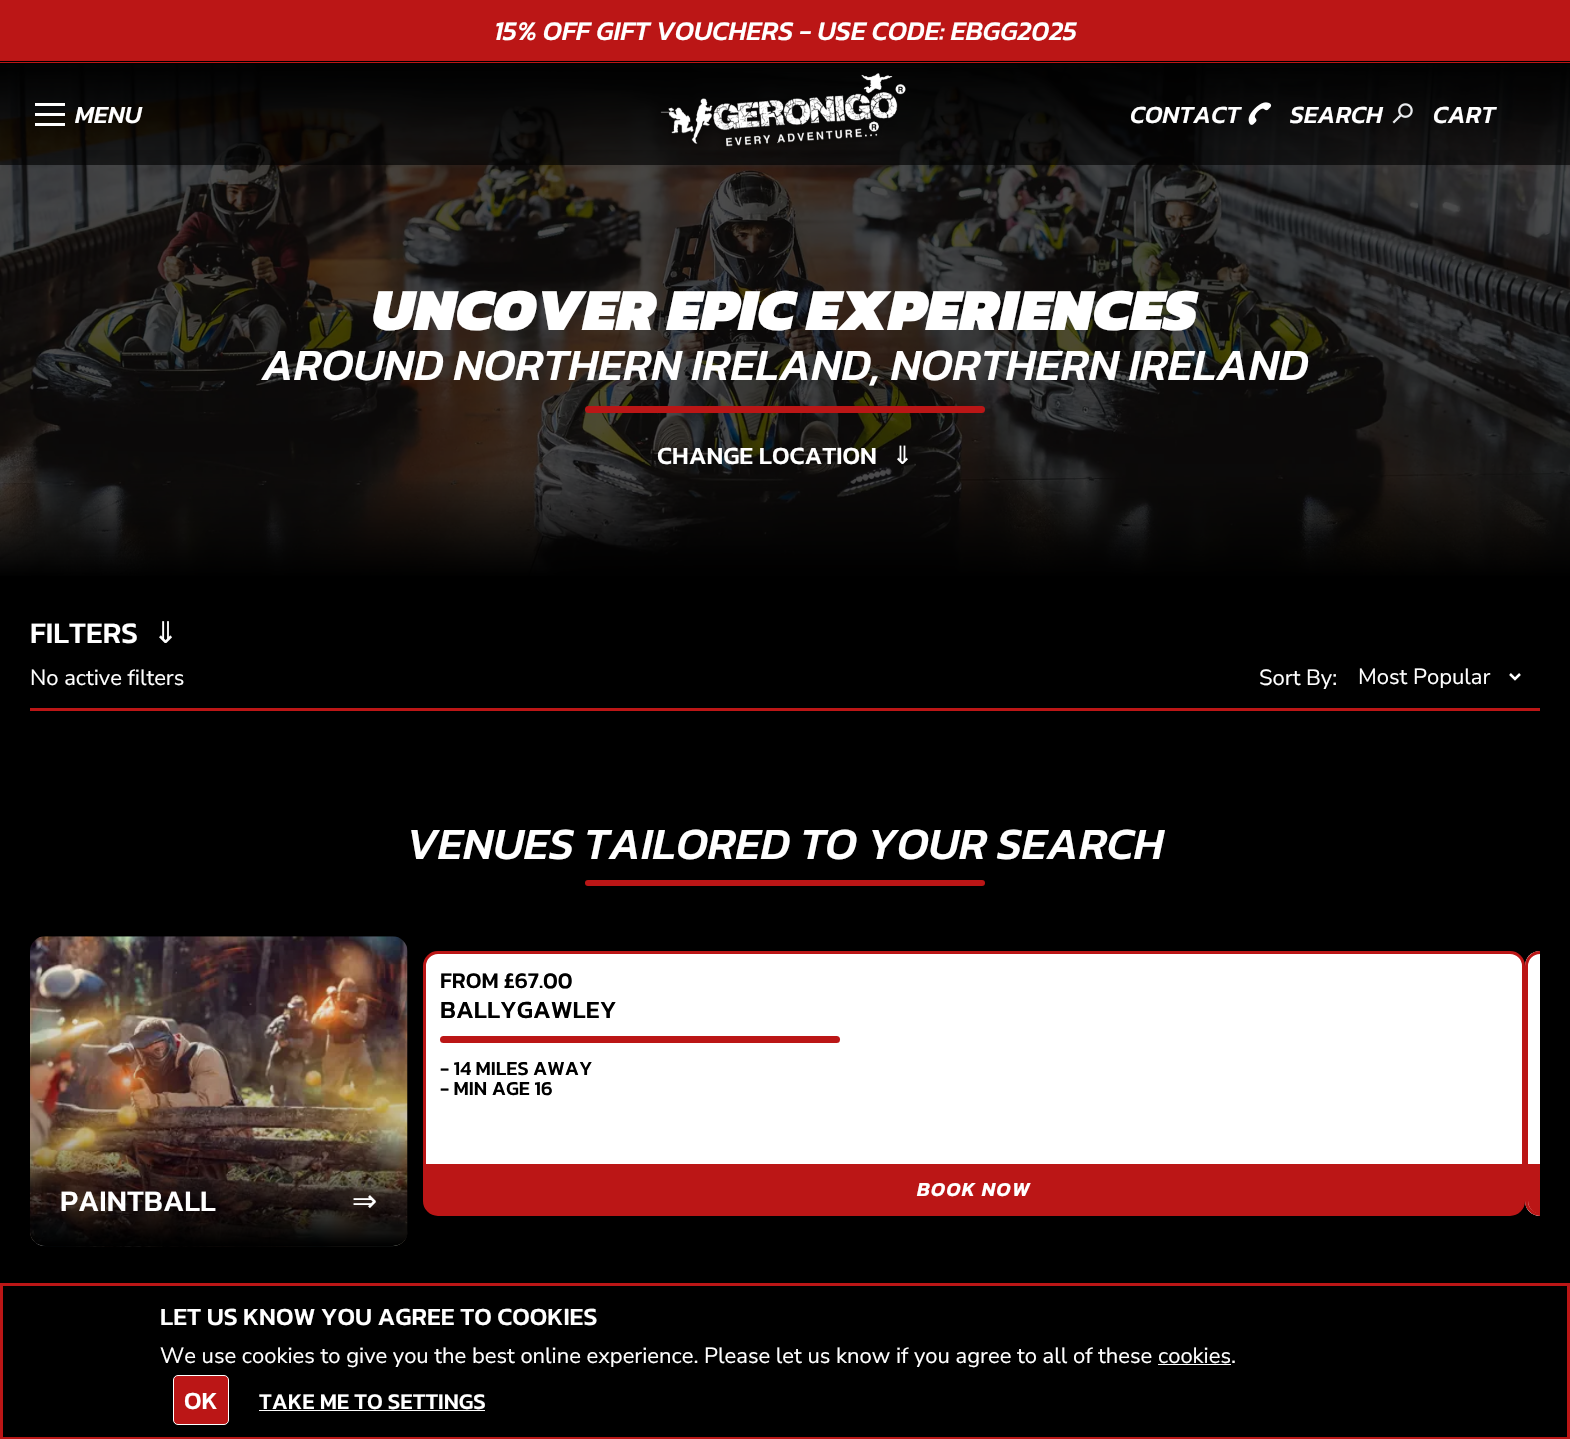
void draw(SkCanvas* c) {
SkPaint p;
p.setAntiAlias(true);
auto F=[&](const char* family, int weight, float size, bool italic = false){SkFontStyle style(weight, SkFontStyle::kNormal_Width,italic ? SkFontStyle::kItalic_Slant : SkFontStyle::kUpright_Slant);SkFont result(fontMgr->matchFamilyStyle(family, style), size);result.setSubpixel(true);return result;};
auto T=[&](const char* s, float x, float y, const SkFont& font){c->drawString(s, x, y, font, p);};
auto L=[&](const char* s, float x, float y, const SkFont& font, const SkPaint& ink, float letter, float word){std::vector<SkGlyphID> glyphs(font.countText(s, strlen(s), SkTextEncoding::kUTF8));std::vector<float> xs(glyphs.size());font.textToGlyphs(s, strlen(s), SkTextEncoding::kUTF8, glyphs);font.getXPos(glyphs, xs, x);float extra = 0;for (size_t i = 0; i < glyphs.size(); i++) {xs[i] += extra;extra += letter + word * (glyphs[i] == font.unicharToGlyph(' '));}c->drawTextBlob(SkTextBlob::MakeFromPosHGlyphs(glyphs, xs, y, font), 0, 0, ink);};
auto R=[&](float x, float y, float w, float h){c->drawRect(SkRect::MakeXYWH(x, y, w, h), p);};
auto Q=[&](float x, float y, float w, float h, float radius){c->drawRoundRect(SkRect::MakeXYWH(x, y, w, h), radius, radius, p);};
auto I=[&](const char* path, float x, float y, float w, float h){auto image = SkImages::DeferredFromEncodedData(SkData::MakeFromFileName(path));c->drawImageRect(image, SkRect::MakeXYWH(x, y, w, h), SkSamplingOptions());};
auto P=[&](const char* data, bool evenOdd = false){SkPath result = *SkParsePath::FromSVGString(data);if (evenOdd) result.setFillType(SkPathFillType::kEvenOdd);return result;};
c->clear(0xff000000);
I("4.png",0,64,1570,512);
{
const SkColor colors[] = {0xff000000,0xb3000000,0xb3000000,0xff000000};
const float stops[] = {0,.2,.8,1};
const SkPoint ends[] = {{785,62}, {785,578}};
p.setShader(SkGradientShader::MakeLinear(ends, colors, stops, 4, SkTileMode::kClamp));
p.setAlpha(255);
}
R(0,64,1570,512);
p.setShader(nullptr);
p.setColor(0x99000000);
R(0,68,1570,97);
p.setColor(0xffbb1616);
R(0,0,1570,63);
p.setColor(0xff000000);
R(0,61,1570,1);
auto f1 = F("Kanit",500,27,true);
p.setColor(0xffffffff);
T("15% OFF GIFT VOUCHERS - USE CODE: EBGG2025",494,40,f1);
p.setColor(0x1a000000);
R(0,150,1570,15);
p.setColor(0xffffffff);
R(35,103,30,3);
R(35,113,30,3);
R(35,123,30,3);
auto f2 = F("Kanit",500,25,true);
T("MENU",75,123,f2);
I("1.png",660,73,246,74);
T("CONTACT",1130,123,f2);
I("2.png",1248,102,24,23);
T("SEARCH",1290,123,f2);
I("3.png",1392,103,21,21);
T("CART",1433,123,f2);
auto f3 = F("Kanit",900,60,true);
T("UNCOVER EPIC EXPERIENCES",372,330,f3);
auto f4 = F("Kanit",500,45,true);
T("AROUND NORTHERN IRELAND, NORTHERN IRELAND",262,380,f4);
p.setColor(0xffbb1616);
Q(585,406,400,7,3.5);
auto f5 = F("Kanit",500,25);
p.setColor(0xffffffff);
T("CHANGE LOCATION",657,464,f5);
auto f6 = F("DejaVu Sans",400,25);
T("⇓",892,464,f6);
auto f7 = F("Kanit",500,30);
T("FILTERS",30,643,f7);
auto f8 = F("DejaVu Sans",400,30);
T("⇓",153,643,f8);
auto f9 = F("Nunito Sans",200,22);
T("No active filters",30,685,f9);
T("Sort By:",1259,685,f9);
p.setStroke(true);
p.setStrokeWidth(2.5);
c->drawPath(P("M1510 674l5 5l5-5"),p);
p.setStroke(false);
T("Most Popular",1358,684,f9);
p.setColor(0xffbb1616);
R(30,708,1510,3);
p.setColor(0xffffffff);
T("VENUES TAILORED TO YOUR SEARCH",406,859,f4);
p.setColor(0xffbb1616);
Q(585,880,400,6,3);
p.setColor(0xffffffff);
c->drawRoundRect(SkRect::MakeXYWH(424.5,952.5,1099,262),13.5,13.5,p);
p.setStroke(true);
p.setStrokeWidth(3);
p.setColor(0xffbb1616);
c->drawRoundRect(SkRect::MakeXYWH(424.5,952.5,1099,262),13.5,13.5,p);
auto f10 = F("Kanit",500,22.5);
p.setStroke(false);
p.setColor(0xff000000);
T("FROM £67.00",440,988,f10);
T("BALLYGAWLEY",440,1018,f5);
p.setColor(0xffbb1616);
Q(440,1036,400,7,3.5);
auto f11 = F("Kanit",500,20);
p.setColor(0xff000000);
T("- 14 MILES AWAY",440,1075,f11);
T("- MIN AGE 16",440,1095,f11);
p.setColor(0xffbb1616);
c->drawPath(P("M425 1164h1098v37c0 7-6 13-13 13h-1072c-7 0-13-6-13-13z"),p);
auto f12 = F("Kanit",600,20,true);
p.setColor(0xffffffff);
L("BOOK NOW",917,1196,f12,p,1.25,0);
c->drawPath(P("M1540 951v265c-8.5 0-15-6.5-15-15v-235c0-8.5 6.5-15 15-15z"),p);
c->save();
c->clipRect(SkRect::MakeXYWH(408,936,1132,310));
p.setStroke(true);
p.setColor(0xffbb1616);
c->drawRoundRect(SkRect::MakeXYWH(1526.5,952.5,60,262),13.5,13.5,p);
c->restore();
c->save();
c->clipPath(P("M1541 954h1071c7 0 13 6 13 13v234c0 7-6 13-13 13h-1071c-7 0-13-6-13-13v-234c0-7 6-13 13-13z"),true);
p.setStroke(false);
R(1528,1164,12,50);
c->restore();
I("5.png",30,936,378,311);
{
const SkColor colors[] = {0x00000000,0x40000000,0xff000000};
const float stops[] = {0,.65,1};
const SkPoint ends[] = {{219,936}, {219,1246}};
p.setShader(SkGradientShader::MakeLinear(ends, colors, stops, 3, SkTileMode::kClamp));
p.setAlpha(255);
}
Q(30,936,378,310,15);
p.setShader(nullptr);
p.setColor(0xffffffff);
T("PAINTBALL",60,1211,f7);
T("⇒",352,1211,f8);
p.setStroke(true);
p.setColor(0xffbb1616);
c->drawRect(SkRect::MakeXYWH(1.5,1284.5,1567,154),p);
p.setStroke(false);
p.setColor(0xffffffff);
T("LET US KNOW YOU AGREE TO COOKIES",160,1325,f5);
T("We use cookies to give you the best online experience. Please let us know if you agree to all of these cookies.",160,1363,f9);
R(1158,1364,73,1);
p.setColor(0xffbb1616);
c->drawRoundRect(SkRect::MakeXYWH(173.5,1375.5,55,49),4.5,4.5,p);
p.setStroke(true);
p.setStrokeWidth(1);
p.setColor(0xffffffff);
c->drawRoundRect(SkRect::MakeXYWH(173.5,1375.5,55,49),4.5,4.5,p);
p.setStroke(false);
T("OK",184,1409,f5);
T("TAKE ME TO SETTINGS",259,1409,f10);
R(259,1410,226,1);
}
